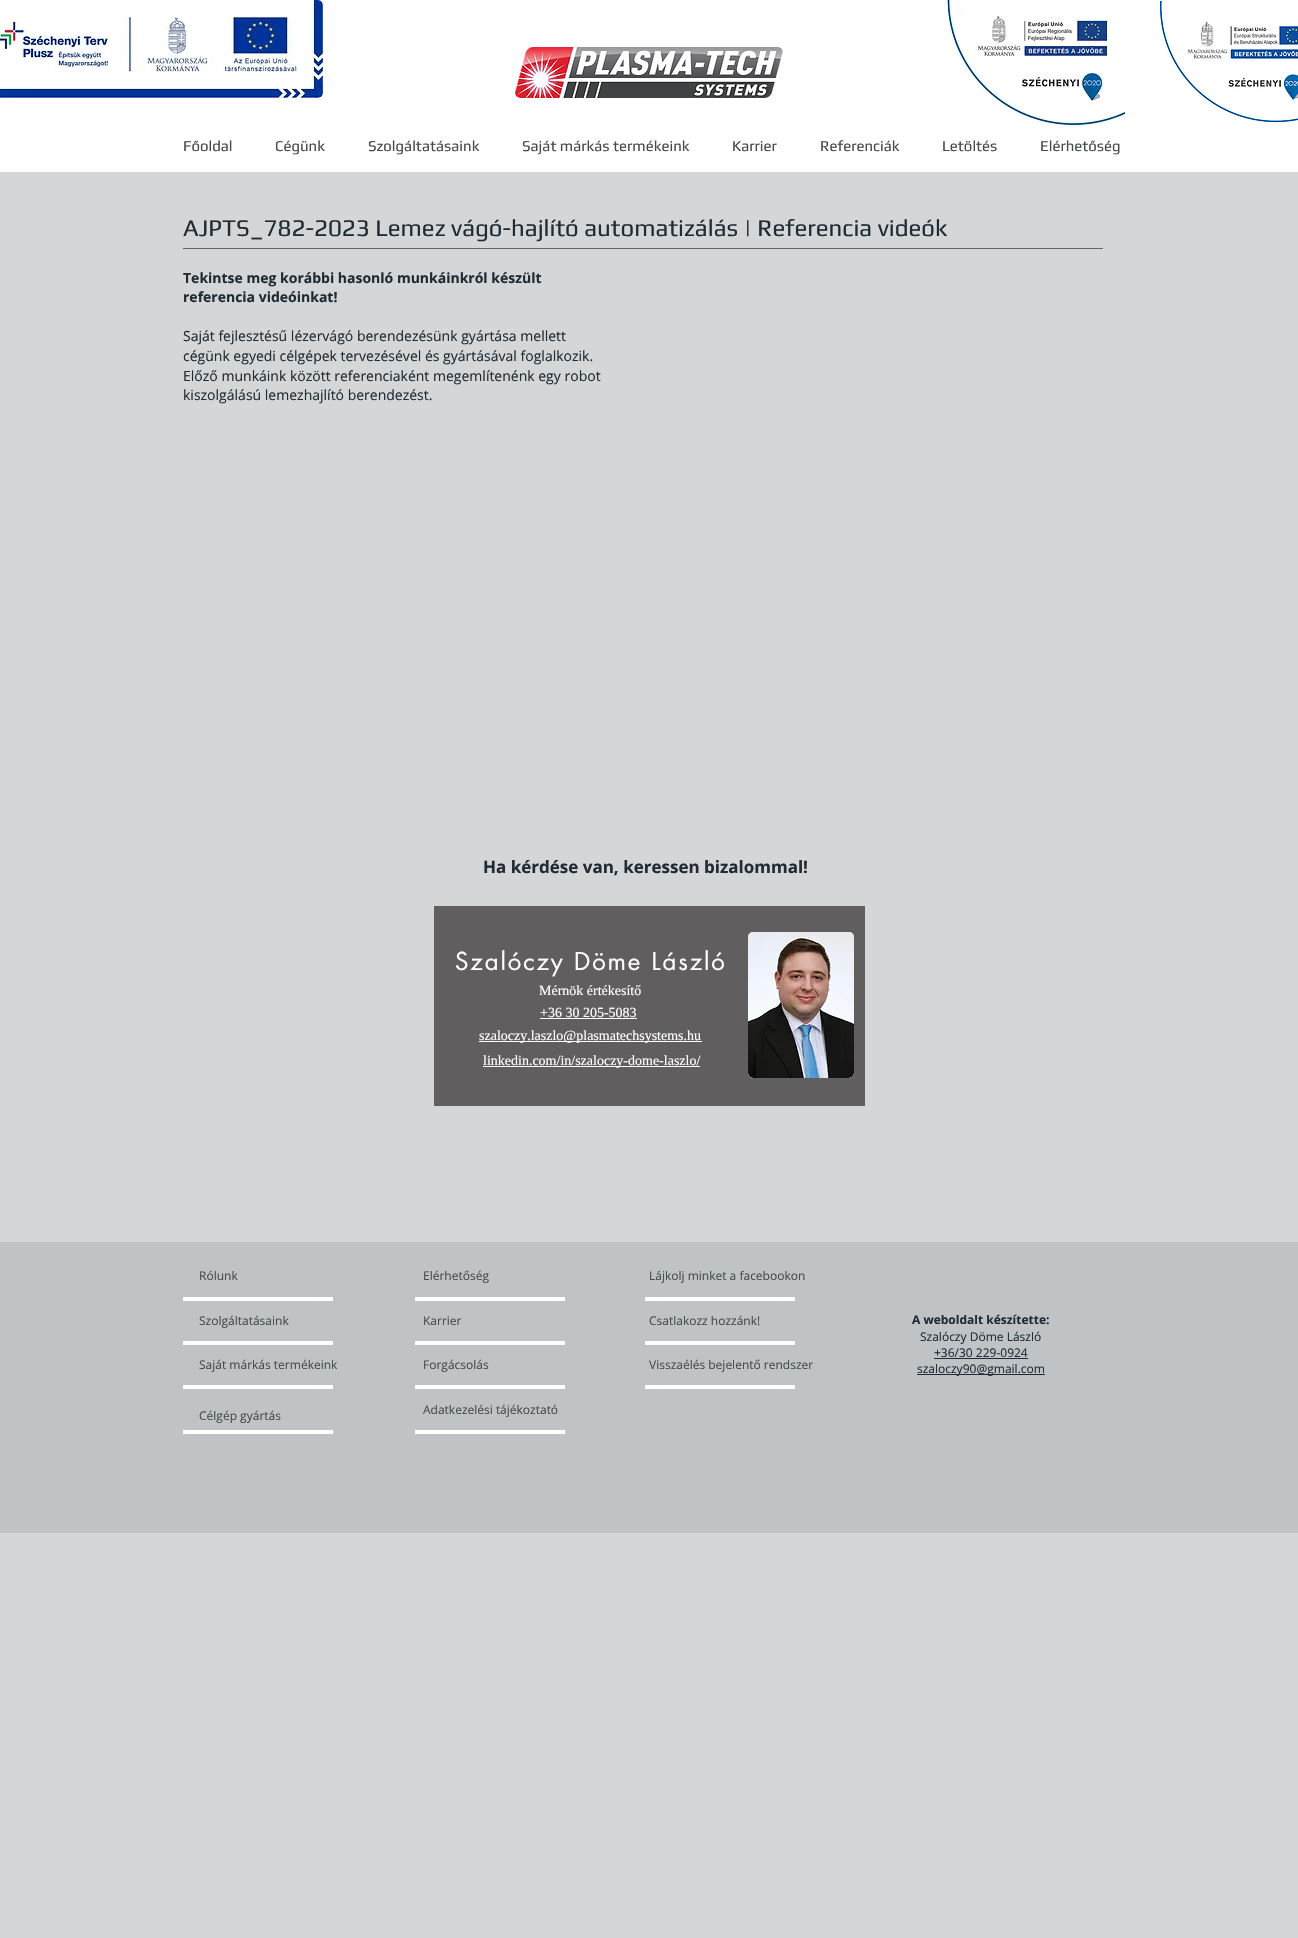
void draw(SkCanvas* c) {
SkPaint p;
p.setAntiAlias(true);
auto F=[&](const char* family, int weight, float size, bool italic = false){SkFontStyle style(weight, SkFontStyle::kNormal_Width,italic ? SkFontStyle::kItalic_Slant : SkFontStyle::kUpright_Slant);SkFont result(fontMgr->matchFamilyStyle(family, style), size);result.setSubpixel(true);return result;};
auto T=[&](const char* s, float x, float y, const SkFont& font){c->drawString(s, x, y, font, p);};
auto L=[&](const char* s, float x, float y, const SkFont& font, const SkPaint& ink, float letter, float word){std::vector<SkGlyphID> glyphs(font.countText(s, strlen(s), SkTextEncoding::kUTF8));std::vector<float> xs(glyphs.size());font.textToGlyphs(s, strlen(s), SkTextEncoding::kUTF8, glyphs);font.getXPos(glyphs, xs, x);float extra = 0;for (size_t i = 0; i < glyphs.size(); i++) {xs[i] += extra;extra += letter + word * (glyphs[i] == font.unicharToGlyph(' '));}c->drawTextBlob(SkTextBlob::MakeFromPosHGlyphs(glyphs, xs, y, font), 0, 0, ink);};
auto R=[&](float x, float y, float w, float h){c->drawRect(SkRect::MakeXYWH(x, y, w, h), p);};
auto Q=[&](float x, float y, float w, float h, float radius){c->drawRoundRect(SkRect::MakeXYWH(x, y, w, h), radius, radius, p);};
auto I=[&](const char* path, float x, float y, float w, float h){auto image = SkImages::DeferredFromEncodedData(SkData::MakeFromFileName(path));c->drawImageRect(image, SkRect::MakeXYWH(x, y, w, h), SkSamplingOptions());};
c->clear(0xffd4d6d7);
p.setColor(0xffffffff);
R(0,0,1298,172);
I("1.png",0,0,323,98);
I("2.png",515,47,268,51);
I("3.png",941,0,184,128);
I("4.png",1159,1,139,122);
auto f1 = F("Play",400,15);
p.setColor(0xff464b4e);
T("Főoldal",183,151,f1);
T("Cégünk",275,151,f1);
T("Szolgáltatásaink",368,151,f1);
T("Saját márkás termékeink",522,151,f1);
T("Karrier",732,151,f1);
T("Referenciák",820,151,f1);
T("Letöltés",942,151,f1);
T("Elérhetőség",1040,151,f1);
auto f2 = F("Play",400,24);
p.setColor(0xff202b33);
T("AJPTS_782-2023 Lemez vágó-hajlító automatizálás | Referencia videók",183,236,f2);
p.setColor(0xff636769);
R(183,248,920,1);
auto f3 = F("Open Sans",700,14);
p.setColor(0xff202b33);
T("Tekintse meg korábbi hasonló munkáinkról készült",183,283,f3);
T("referencia videóinkat!",183,302,f3);
auto f4 = F("Open Sans",400,14);
T("Saját fejlesztésű lézervágó berendezésünk gyártása mellett",183,341,f4);
T("cégünk egyedi célgépek tervezésével és gyártásával foglalkozik.",183,361,f4);
T("Előző munkáink között referenciaként megemlítenénk egy robot",183,381,f4);
T("kiszolgálású lemezhajlító berendezést.",183,400,f4);
auto f5 = F("Open Sans",700,17);
T("Ha kérdése van, keressen bizalommal!",483,873,f5);
p.setColor(0xff605e5e);
R(434,906,431,200);
auto f6 = F("futura",400,24);
p.setColor(0xffffffff);
L("Szalóczy Döme László",455,970,f6,p,1.9,0);
Q(748,932,106,146,5);
I("5.png",748,932,106,146);
auto f7 = F("Liberation Serif",400,14);
T("Mérnök értékesítő",539,995,f7);
T("+36 30 205-5083",540,1017,f7);
R(540,1018,97,1);
R(479,1041,223,1);
T("szaloczy.laszlo@plasmatechsystems.hu",479,1040,f7);
R(483,1066,217,1);
T("linkedin.com/in/szaloczy-dome-laszlo/",483,1065,f7);
p.setColor(0xffc0c3c5);
R(0,1242,1298,291);
auto f8 = F("Open Sans",400,12);
p.setColor(0xff464b4e);
T("Rólunk",199,1280,f8);
T("Elérhetőség",423,1280,f8);
T("Lájkolj minket a facebookon",649,1280,f8);
p.setColor(0xffffffff);
R(183,1297,150,4);
R(415,1297,150,4);
R(645,1297,150,4);
p.setColor(0xff464b4e);
T("Szolgáltatásaink",199,1325,f8);
T("Karrier",423,1325,f8);
T("Csatlakozz hozzánk!",649,1325,f8);
auto f9 = F("Open Sans",700,12);
p.setColor(0xff202b33);
T("A weboldalt készítette:",912,1324,f9);
T("Szalóczy Döme László",920,1341,f8);
T("+36/30 229-0924",934,1357,f8);
R(934,1358,94,1);
R(917,1374,128,1);
T("szaloczy90@gmail.com",917,1373,f8);
p.setColor(0xffffffff);
R(183,1341,150,4);
R(415,1341,150,4);
R(645,1341,150,4);
p.setColor(0xff464b4e);
T("Saját márkás termékeink",199,1369,f8);
T("Forgácsolás",423,1369,f8);
T("Visszaélés bejelentő rendszer",649,1369,f8);
p.setColor(0xffffffff);
R(183,1385,150,4);
R(415,1385,150,4);
R(645,1385,150,4);
p.setColor(0xff464b4e);
T("Célgép gyártás",199,1420,f8);
T("Adatkezelési tájékoztató",423,1414,f8);
p.setColor(0xffffffff);
R(183,1430,150,4);
R(415,1430,150,4);
}
